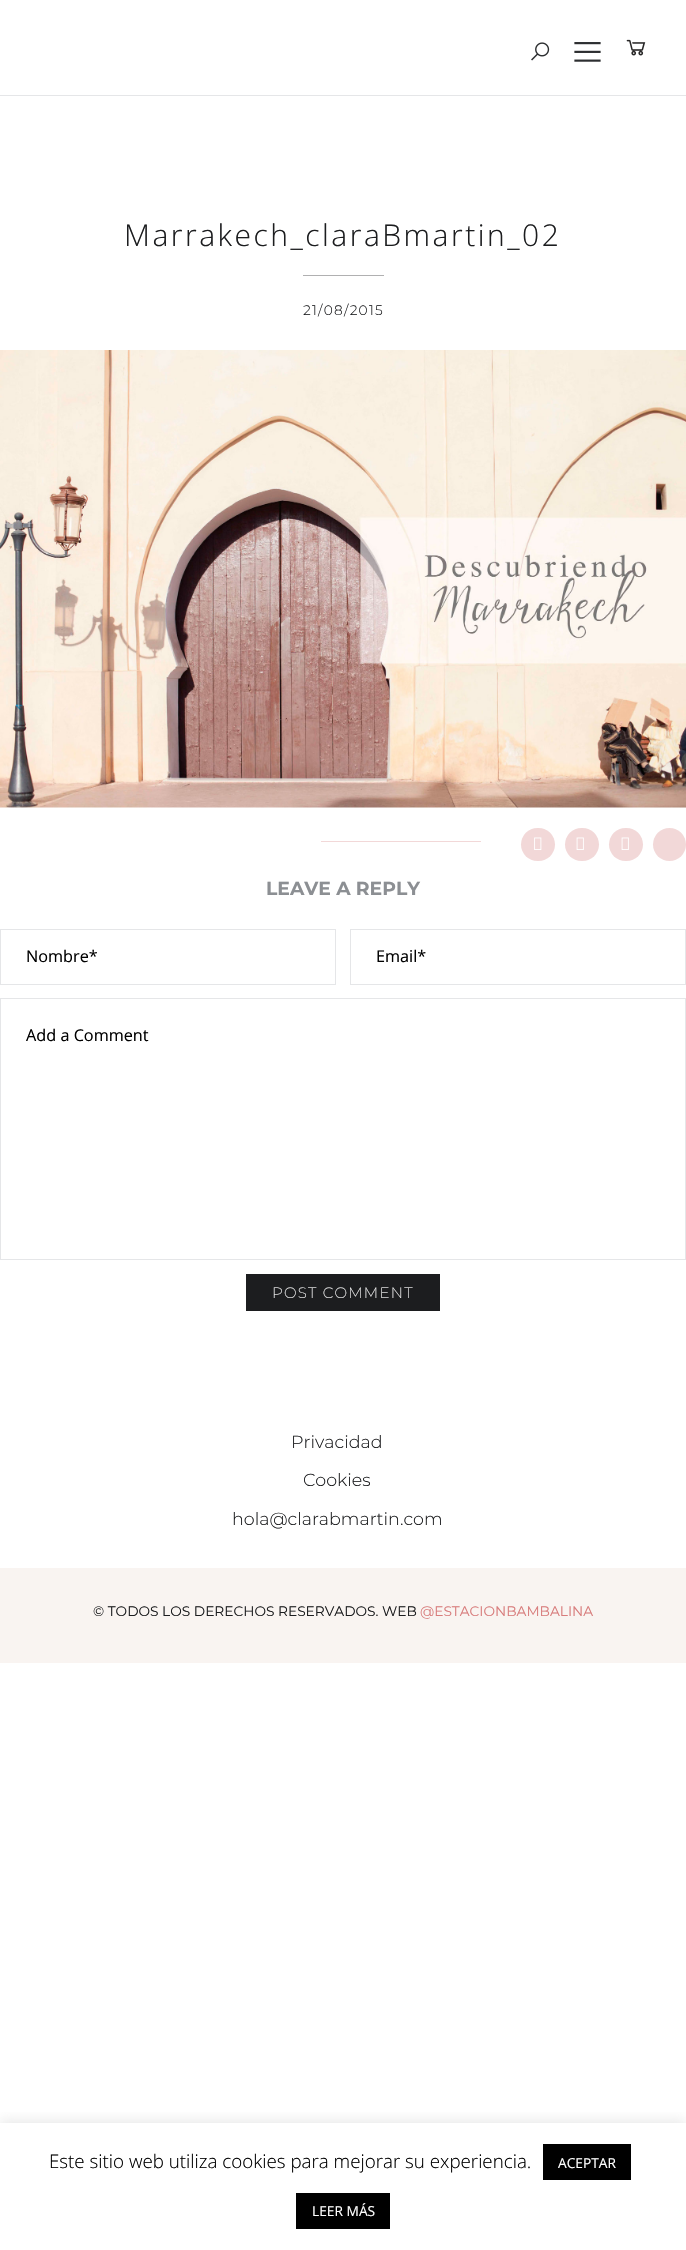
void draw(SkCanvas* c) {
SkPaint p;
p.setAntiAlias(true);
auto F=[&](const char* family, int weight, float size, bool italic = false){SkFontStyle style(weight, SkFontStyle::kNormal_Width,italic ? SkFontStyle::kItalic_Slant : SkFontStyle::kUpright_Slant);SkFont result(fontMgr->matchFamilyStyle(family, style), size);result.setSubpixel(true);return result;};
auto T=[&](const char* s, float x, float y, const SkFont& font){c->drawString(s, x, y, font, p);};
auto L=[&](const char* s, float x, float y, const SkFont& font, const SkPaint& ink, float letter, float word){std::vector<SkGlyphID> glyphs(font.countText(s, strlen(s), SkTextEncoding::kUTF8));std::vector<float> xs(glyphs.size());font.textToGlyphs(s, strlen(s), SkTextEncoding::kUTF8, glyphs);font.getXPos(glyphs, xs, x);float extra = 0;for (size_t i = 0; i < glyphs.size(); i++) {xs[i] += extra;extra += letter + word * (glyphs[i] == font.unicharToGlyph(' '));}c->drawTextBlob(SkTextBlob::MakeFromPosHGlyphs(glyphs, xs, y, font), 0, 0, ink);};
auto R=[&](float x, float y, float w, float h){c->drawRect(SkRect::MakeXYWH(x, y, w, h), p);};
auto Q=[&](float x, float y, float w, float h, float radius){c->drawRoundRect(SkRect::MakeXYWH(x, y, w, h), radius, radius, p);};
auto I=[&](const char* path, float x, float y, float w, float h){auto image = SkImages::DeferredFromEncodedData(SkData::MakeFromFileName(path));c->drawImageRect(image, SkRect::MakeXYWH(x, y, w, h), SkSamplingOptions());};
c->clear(0xffffffff);
p.setColor(0xffe5e6e8);
R(0,95,686,1);
I("1.png",531,42,19,19);
I("2.png",574,42,27,20);
I("3.png",626,39,20,17);
auto f1 = F("Open Sans",300,30);
p.setColor(0xff1c1d1f);
L("Marrakech_claraBmartin_02",124,246,f1,p,2.5,0);
auto f2 = F("Montserrat",300,13.75);
L("21/08/2015",303,315,f2,p,1.25,0);
p.setColor(0xffb0b0b1);
R(303,275,81,1);
I("4.png",0,350,686,458);
p.setColor(0xfff2d8d8);
R(321,841,160,1);
Q(521,828,34,33,16.5);
I("5.png",534,837,8,13);
Q(565,828,34,33,16.5);
I("6.png",576,837,8,13);
Q(609,828,34,33,16.5);
I("6.png",621,837,8,13);
c->drawCircle(669.5,844.5,16.5,p);
auto f3 = F("Montserrat",700,18.75);
p.setColor(0xff8c8f93);
T("LEAVE A REPLY",266,895,f3);
p.setStroke(true);
p.setStrokeWidth(1);
p.setColor(0xffe5e6e8);
c->drawRect(SkRect::MakeXYWH(.5,929.5,335,55),p);
auto f4 = F("Open Sans",400,16.25);
p.setStroke(false);
p.setColor(0xff000000);
T("Nombre*",26,962,f4);
p.setStroke(true);
p.setColor(0xffe5e6e8);
c->drawRect(SkRect::MakeXYWH(350.5,929.5,335,55),p);
p.setStroke(false);
p.setColor(0xff000000);
T("Email*",376,962,f4);
p.setStroke(true);
p.setColor(0xffe5e6e8);
c->drawRect(SkRect::MakeXYWH(.5,998.5,685,261),p);
p.setStroke(false);
p.setColor(0xff000000);
T("Add a Comment",26,1041,f4);
p.setColor(0xff1c1d1f);
R(246,1274,194,37);
auto f5 = F("Montserrat",200,15);
p.setColor(0xffffffff);
L("POST COMMENT",272,1298,f5,p,1.25,0);
auto f6 = F("Montserrat",300,17.5);
p.setColor(0xff1c1d1f);
T("Privacidad",291,1448,f6);
T("Cookies",303,1486,f6);
T("hola@clarabmartin.com",232,1525,f6);
p.setColor(0xfff9f4f1);
R(0,1568,686,95);
auto f7 = F("Montserrat",400,13.75);
p.setColor(0xff1c1d1f);
T("© TODOS LOS DERECHOS RESERVADOS. WEB",93,1616,f7);
p.setColor(0xffd87c7c);
T("@ESTACIONBAMBALINA",420,1616,f7);
c->save();
c->clipRect(SkRect::MakeXYWH(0,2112,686,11));
p.setColor(0x4dacabab);
p.setMaskFilter(SkMaskFilter::MakeBlur(kNormal_SkBlurStyle, 6));
c->drawRect(SkRect::MakeXYWH(0,2121,686,128),p);
p.setMaskFilter(nullptr);
c->restore();
auto f8 = F("Open Sans",300,18.75);
p.setColor(0xff000000);
T("Este sitio web utiliza cookies para mejorar su experiencia.",49,2168,f8);
R(543,2144,88,36);
auto f9 = F("Open Sans",400,13.75);
p.setColor(0xffffffff);
T("ACEPTAR",558,2168,f9);
p.setColor(0xff000000);
R(296,2193,94,36);
p.setColor(0xffffffff);
T("LEER MÁS",312,2216,f9);
}
